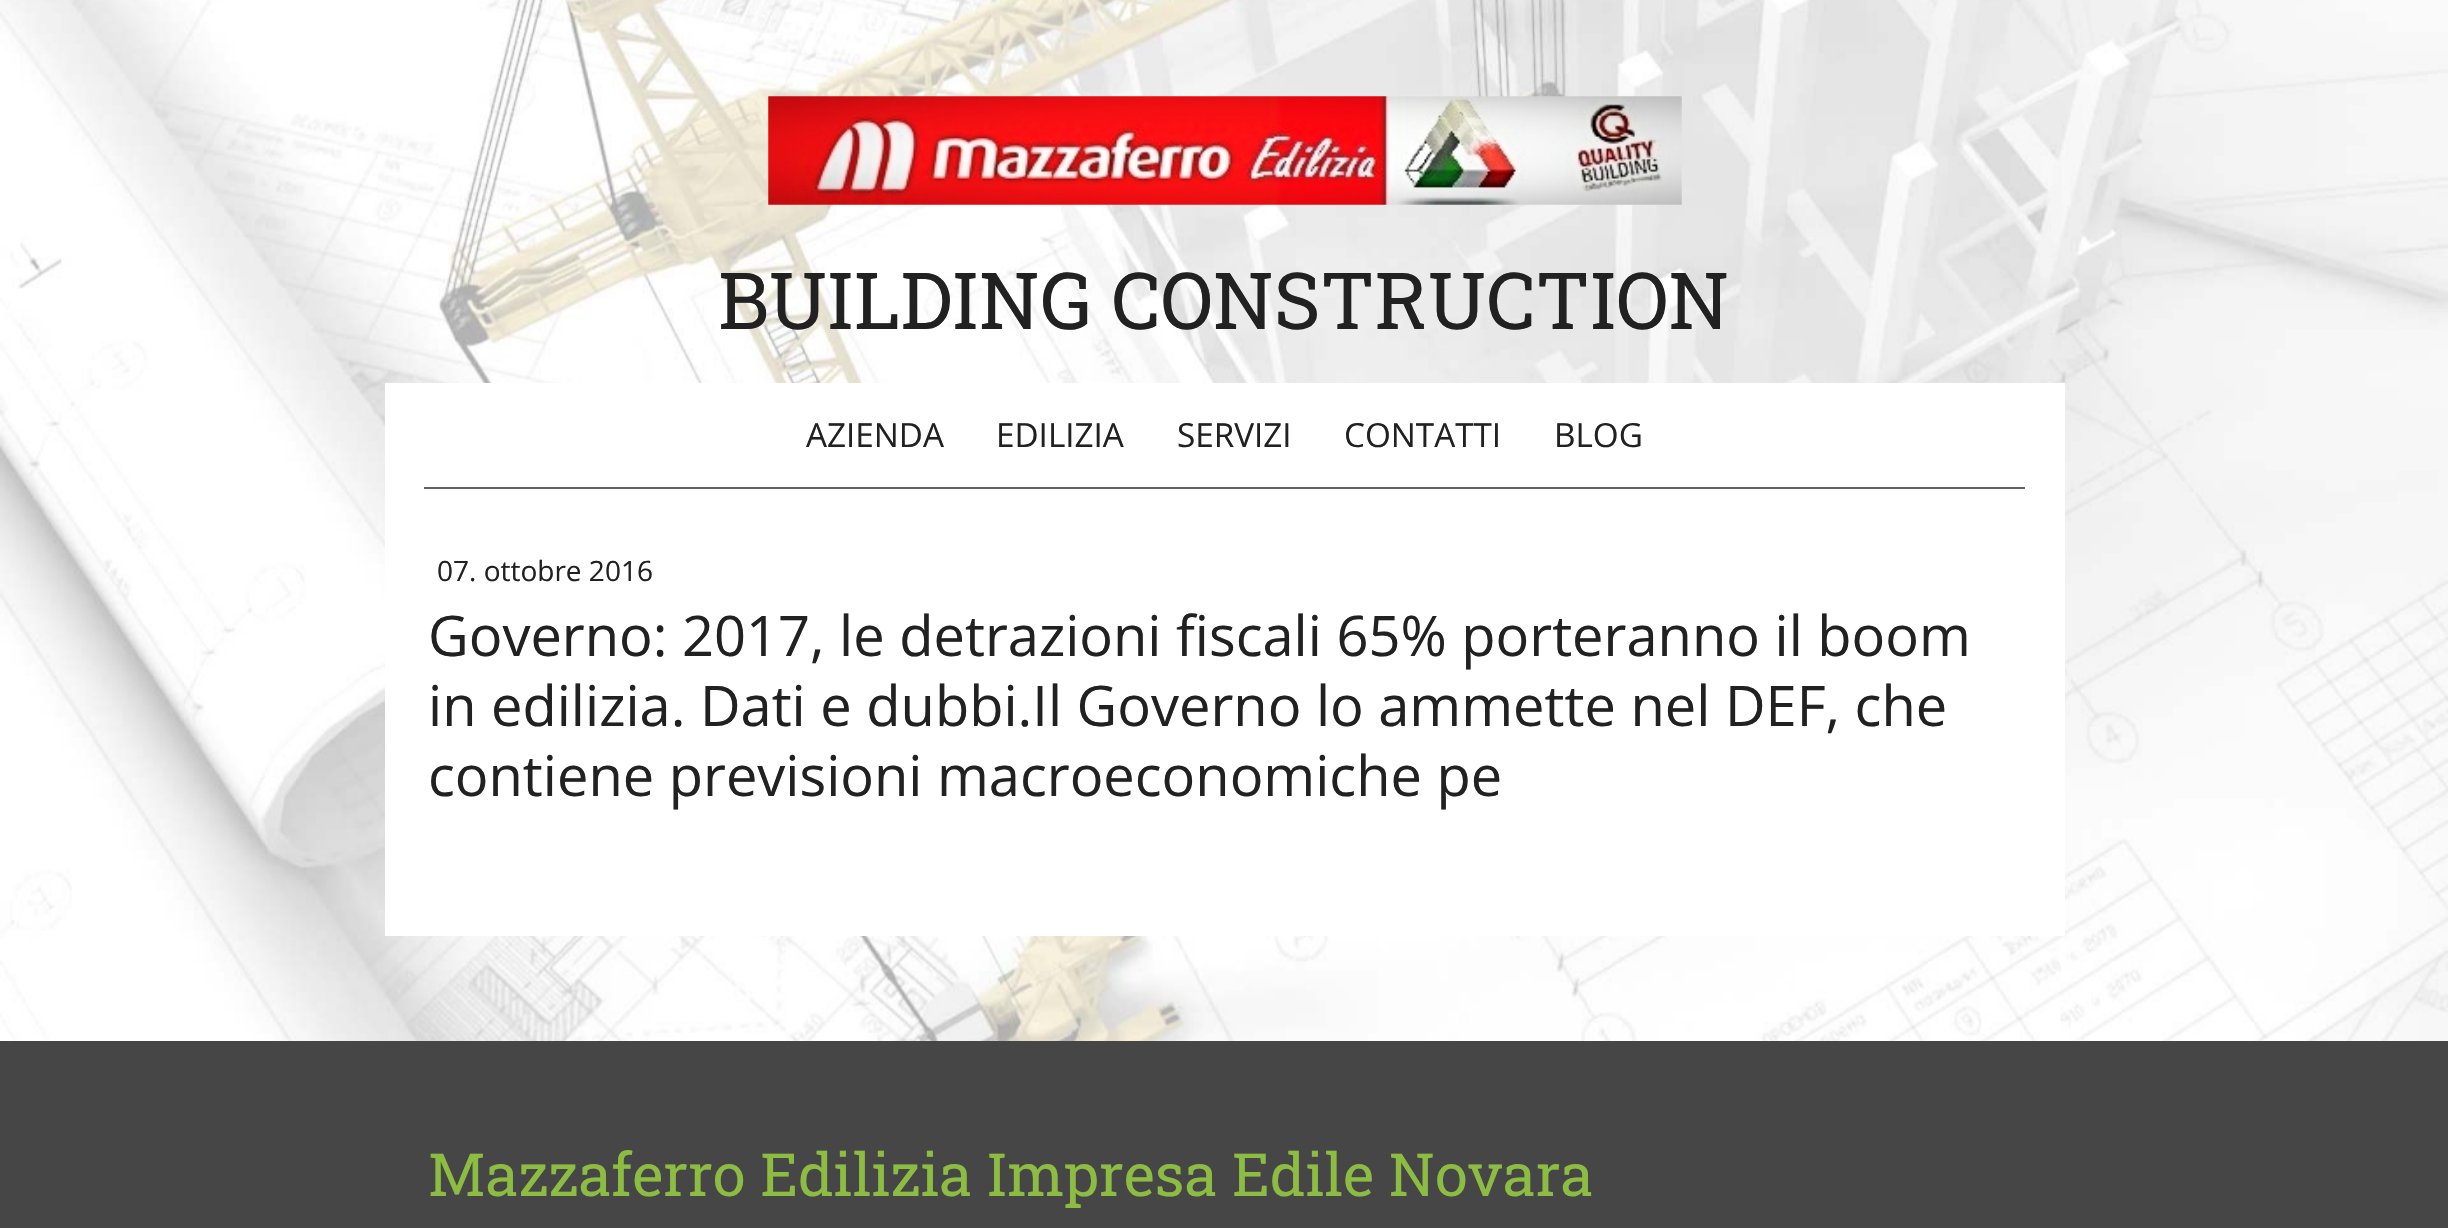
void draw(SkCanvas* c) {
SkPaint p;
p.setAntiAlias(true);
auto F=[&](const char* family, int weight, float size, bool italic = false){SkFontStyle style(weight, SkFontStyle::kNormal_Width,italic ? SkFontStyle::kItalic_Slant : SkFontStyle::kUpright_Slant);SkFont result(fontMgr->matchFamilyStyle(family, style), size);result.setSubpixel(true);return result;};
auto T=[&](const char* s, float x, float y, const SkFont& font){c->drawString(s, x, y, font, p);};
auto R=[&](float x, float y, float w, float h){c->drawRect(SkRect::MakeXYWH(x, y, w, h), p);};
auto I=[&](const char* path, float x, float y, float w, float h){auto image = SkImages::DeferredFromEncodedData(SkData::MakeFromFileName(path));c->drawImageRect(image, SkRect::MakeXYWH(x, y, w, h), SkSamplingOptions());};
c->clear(0xffffffff);
I("1.png",0,0,2448,1041);
I("2.png",768,96,914,109);
auto f1 = F("Roboto Slab",400,78.75);
p.setColor(0xff212121);
T("BUILDING CONSTRUCTION",718,329,f1);
p.setColor(0xffffffff);
R(385,383,1680,553);
p.setColor(0xff626262);
R(424,487,1601,2);
auto f2 = F("Open Sans",400,33.25);
p.setColor(0xff212121);
T("AZIENDA",806,447,f2);
T("EDILIZIA",996,447,f2);
T("SERVIZI",1177,447,f2);
T("CONTATTI",1344,447,f2);
T("BLOG",1554,447,f2);
auto f3 = F("Open Sans",400,28);
T("07. ottobre 2016",437,581,f3);
auto f4 = F("Open Sans",400,56);
T("Governo: 2017, le detrazioni fiscali 65% porteranno il boom",428,656,f4);
T("in edilizia. Dati e dubbi.Il Governo lo ammette nel DEF, che",428,726,f4);
T("contiene previsioni macroeconomiche pe",428,796,f4);
p.setColor(0xff464646);
R(0,1041,2448,187);
auto f5 = F("Roboto Slab",400,59.5);
p.setColor(0xff8cbd42);
T("Mazzaferro Edilizia Impresa Edile Novara",428,1196,f5);
}
